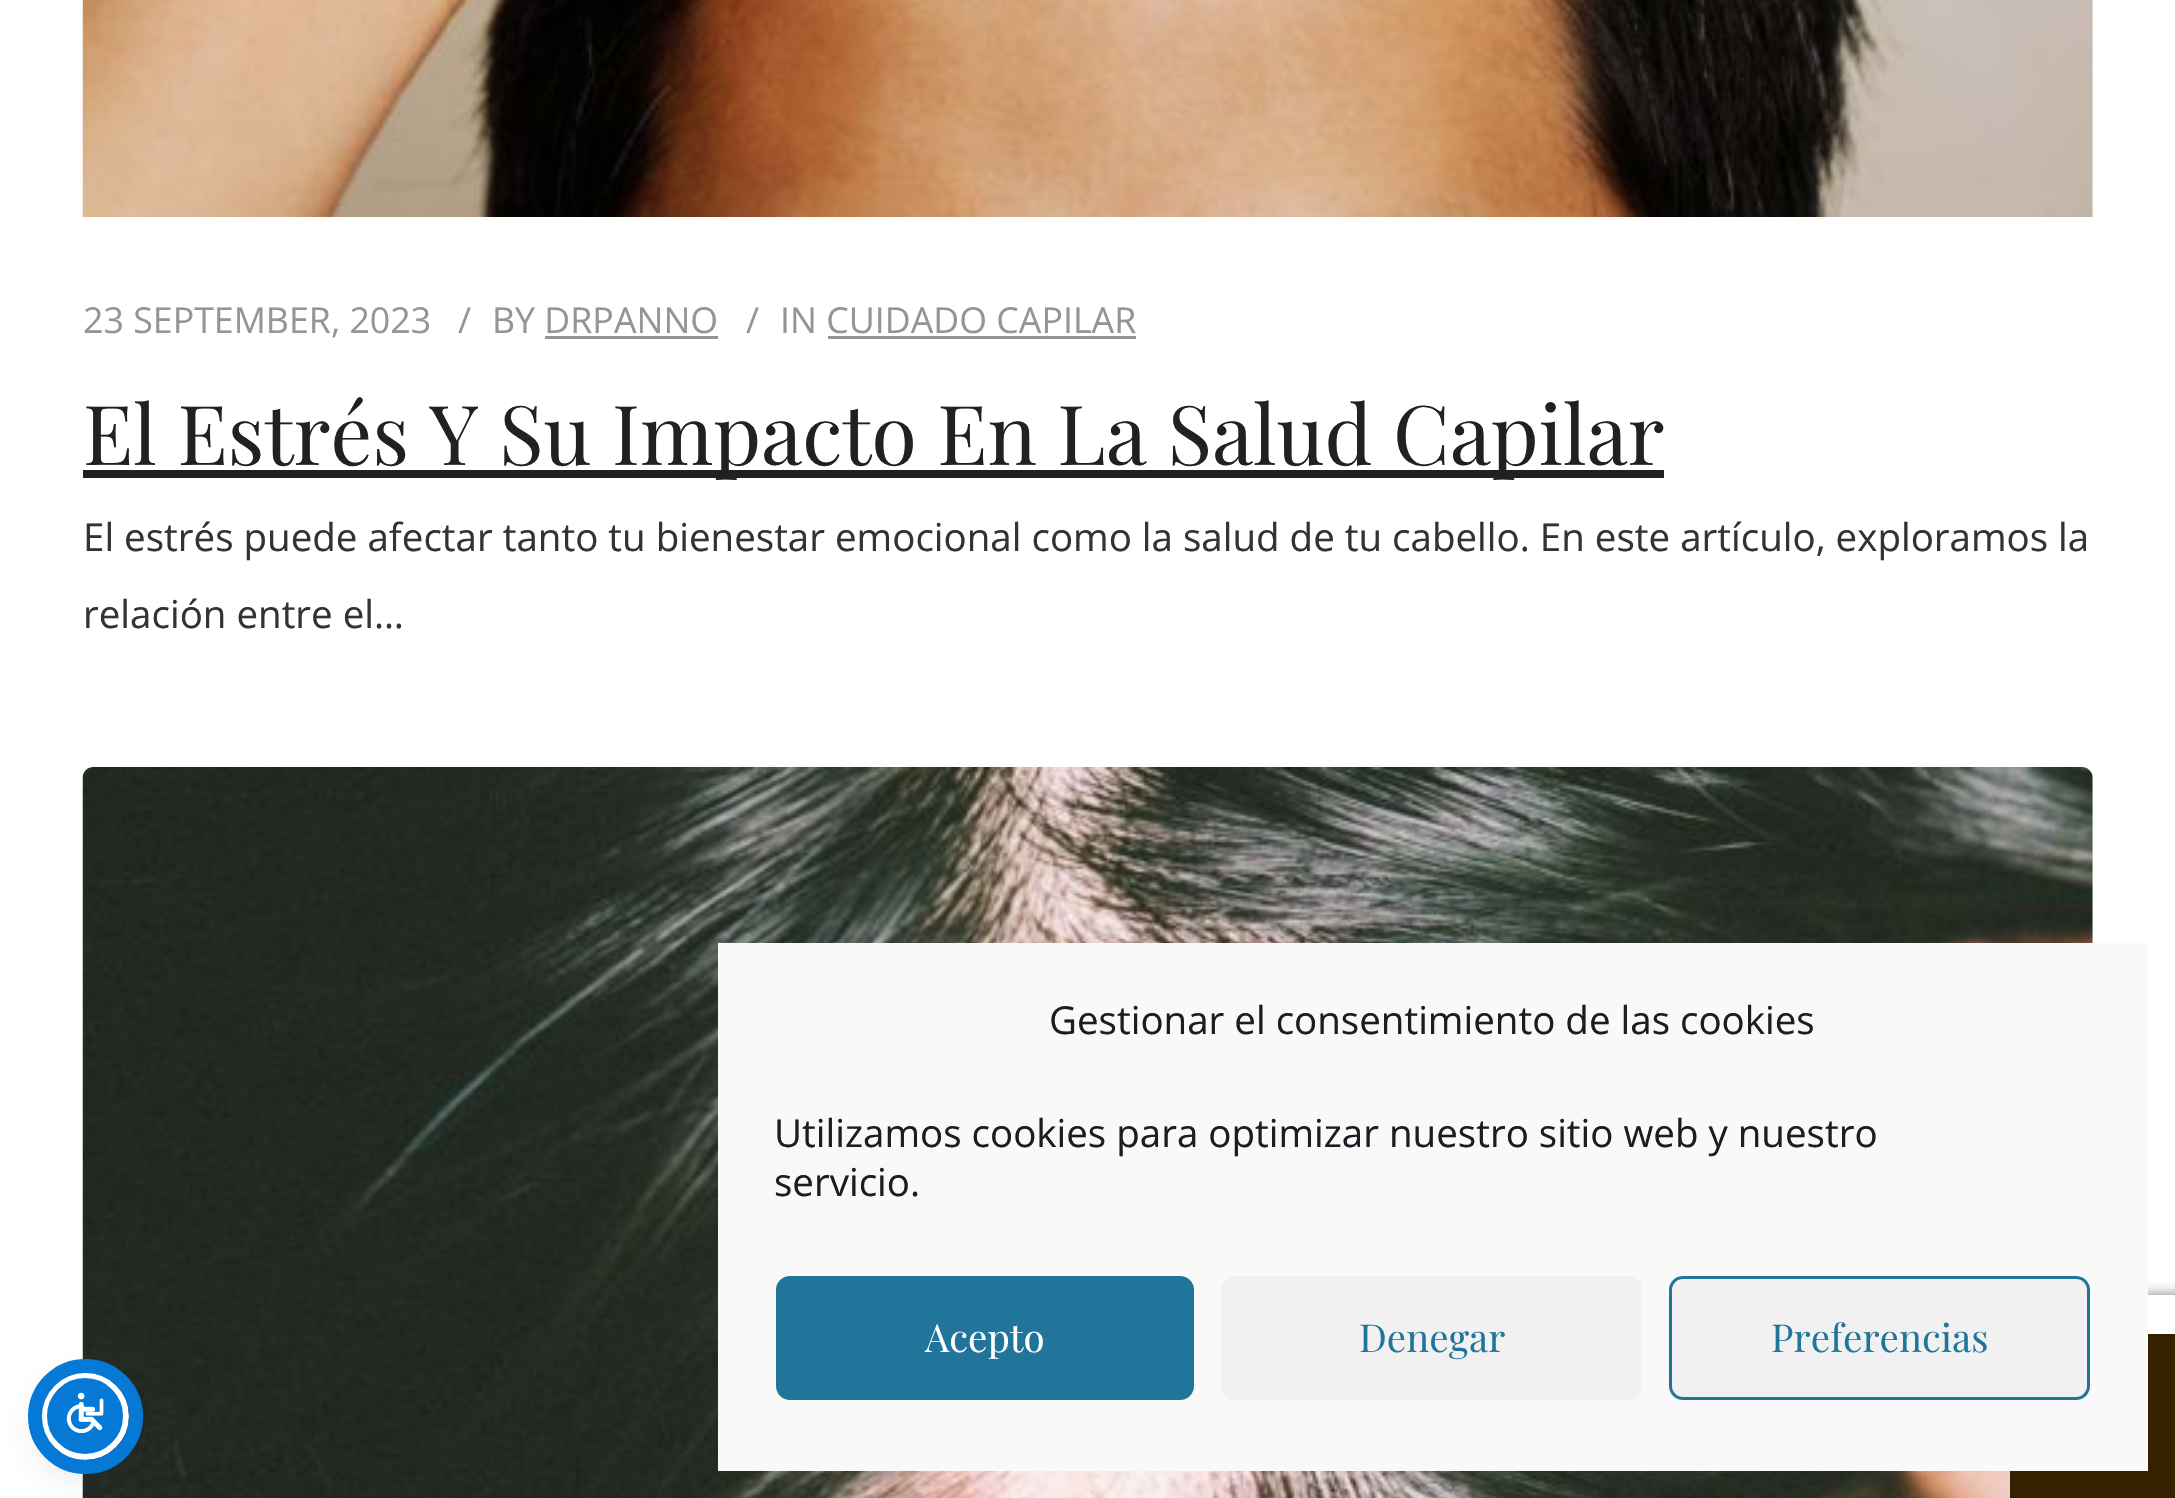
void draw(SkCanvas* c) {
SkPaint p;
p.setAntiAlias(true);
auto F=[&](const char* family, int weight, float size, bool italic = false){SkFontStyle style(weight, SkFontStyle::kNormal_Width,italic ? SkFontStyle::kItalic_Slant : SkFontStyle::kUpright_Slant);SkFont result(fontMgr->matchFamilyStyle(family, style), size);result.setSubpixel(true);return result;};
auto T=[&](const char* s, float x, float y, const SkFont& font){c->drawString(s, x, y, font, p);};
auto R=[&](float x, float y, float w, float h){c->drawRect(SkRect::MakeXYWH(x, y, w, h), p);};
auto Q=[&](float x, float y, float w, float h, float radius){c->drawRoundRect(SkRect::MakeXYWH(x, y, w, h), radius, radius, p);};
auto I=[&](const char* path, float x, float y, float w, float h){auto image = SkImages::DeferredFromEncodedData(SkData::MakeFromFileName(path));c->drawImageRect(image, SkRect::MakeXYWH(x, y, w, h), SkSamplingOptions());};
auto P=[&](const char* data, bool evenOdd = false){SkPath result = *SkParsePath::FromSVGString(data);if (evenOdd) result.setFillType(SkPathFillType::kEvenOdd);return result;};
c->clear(0xffffffff);
I("1.png",82,0,2011,217);
auto f1 = F("Open Sans",400,35.75);
p.setColor(0xff959595);
T("23 SEPTEMBER, 2023",83,333,f1);
T("/",458,333,f1);
T("BY DRPANNO",492,333,f1);
R(545,336,173,3);
T("/",746,333,f1);
T("IN CUIDADO CAPILAR",780,333,f1);
R(828,336,308,3);
p.setColor(0xff212121);
R(83,470,1581,8);
auto f2 = F("Playfair Display",400,82.5);
T("El Estrés Y Su Impacto En La Salud Capilar",83,465,f2);
auto f3 = F("Open Sans",400,38.5);
p.setColor(0xff333333);
T("El estrés puede afectar tanto tu bienestar emocional como la salud de tu cabello. En este artículo, exploramos la",83,551,f3);
T("relación entre el…",83,628,f3);
I("2.png",82,767,2011,731);
p.setColor(0x335d6494);
p.setMaskFilter(SkMaskFilter::MakeBlur(kNormal_SkBlurStyle, 5.5));
c->drawRoundRect(SkRect::MakeXYWH(41,1378,88,88),44,44,p);
p.setMaskFilter(nullptr);
p.setColor(0x26252c61);
p.setMaskFilter(SkMaskFilter::MakeBlur(kNormal_SkBlurStyle, 20.5));
c->drawRoundRect(SkRect::MakeXYWH(41,1386,88,88),44,44,p);
p.setMaskFilter(nullptr);
p.setColor(0xff0679d7);
c->drawCircle(85,1416,41,p);
p.setStroke(true);
p.setStrokeWidth(6);
p.setColor(0xffffffff);
c->drawCircle(85,1416,41,p);
p.setStrokeWidth(14);
p.setColor(0xff0679d7);
c->drawCircle(85.5,1416.5,50.5,p);
I("3.png",66,1392,38,41);
c->save();
c->clipPath(P("M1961 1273h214v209h-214zm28 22h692c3.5 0 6 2.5 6 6v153c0 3.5-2.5 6-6 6h-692c-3.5 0-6-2.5-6-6v-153c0-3.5 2.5-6 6-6z",true),true);
p.setStroke(false);
p.setColor(0xff808080);
p.setMaskFilter(SkMaskFilter::MakeBlur(kNormal_SkBlurStyle, 7));
c->drawRoundRect(SkRect::MakeXYWH(1983,1295,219,165),6,6,p);
p.setMaskFilter(nullptr);
c->restore();
p.setColor(0xff352100);
R(2010,1334,165,164);
p.setColor(0xfff9f9f9);
R(718,943,1430,528);
p.setColor(0xff191e23);
T("Gestionar el consentimiento de las cookies",1049,1034,f3);
T("Utilizamos cookies para optimizar nuestro sitio web y nuestro",774,1147,f3);
T("servicio.",774,1196,f3);
p.setColor(0xff21759b);
c->drawRoundRect(SkRect::MakeXYWH(777.5,1277.5,415,121),12.5,12.5,p);
p.setStroke(true);
p.setStrokeWidth(3);
c->drawRoundRect(SkRect::MakeXYWH(777.5,1277.5,415,121),12.5,12.5,p);
auto f4 = F("Playfair Display",400,38.5);
p.setStroke(false);
p.setColor(0xffffffff);
T("Acepto",925,1352,f4);
p.setColor(0xfff1f1f1);
Q(1221,1276,421,124,14);
p.setColor(0xff21759b);
T("Denegar",1359,1352,f4);
p.setColor(0xfff1f1f1);
c->drawRoundRect(SkRect::MakeXYWH(1670.5,1277.5,418,121),12.5,12.5,p);
p.setStroke(true);
p.setColor(0xff21759b);
c->drawRoundRect(SkRect::MakeXYWH(1670.5,1277.5,418,121),12.5,12.5,p);
p.setStroke(false);
T("Preferencias",1771,1352,f4);
}
